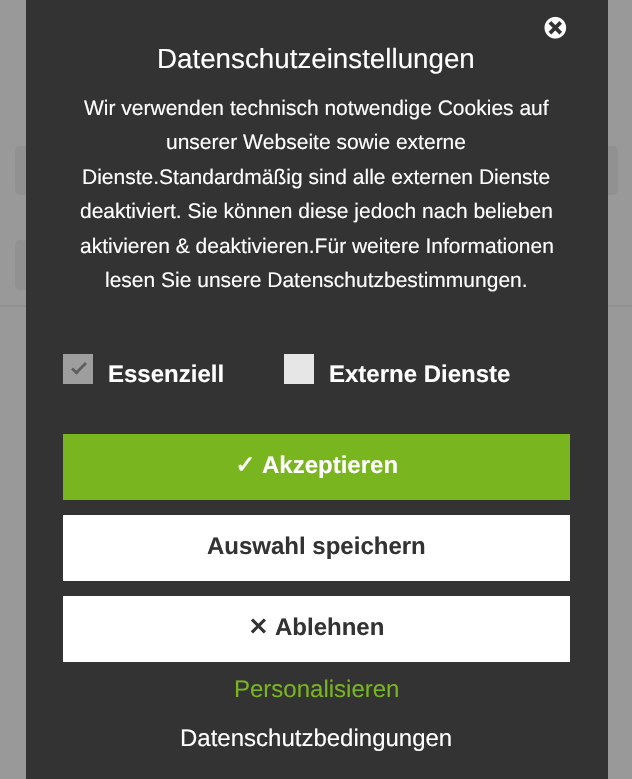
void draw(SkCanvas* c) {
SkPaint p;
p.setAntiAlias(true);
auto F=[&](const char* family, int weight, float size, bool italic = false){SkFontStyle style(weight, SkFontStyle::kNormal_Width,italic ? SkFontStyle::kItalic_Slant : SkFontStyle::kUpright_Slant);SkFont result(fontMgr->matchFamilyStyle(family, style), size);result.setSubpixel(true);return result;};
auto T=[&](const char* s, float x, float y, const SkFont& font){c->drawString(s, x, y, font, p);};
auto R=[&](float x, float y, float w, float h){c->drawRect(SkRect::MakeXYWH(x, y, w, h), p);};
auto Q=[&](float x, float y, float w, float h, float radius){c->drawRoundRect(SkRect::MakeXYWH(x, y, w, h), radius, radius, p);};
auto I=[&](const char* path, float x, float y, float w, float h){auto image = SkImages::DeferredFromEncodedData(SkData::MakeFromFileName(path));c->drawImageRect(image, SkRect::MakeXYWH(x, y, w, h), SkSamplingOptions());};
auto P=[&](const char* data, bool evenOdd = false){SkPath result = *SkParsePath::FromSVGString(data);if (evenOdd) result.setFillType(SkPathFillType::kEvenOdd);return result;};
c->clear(0xff999999);
p.setColor(0xff919191);
R(0,305,632,2);
Q(15,146,603,49,5);
Q(15,240,50,50,5);
p.setColor(0xff333333);
R(26,0,582,779);
I("1.png",544,16,23,23);
auto f1 = F("Liberation Sans",400,27.75);
p.setColor(0xffffffff);
T("Datenschutzeinstellungen",157,68,f1);
auto f2 = F("Liberation Sans",400,21);
T("Wir verwenden technisch notwendige Cookies auf",84,115,f2);
T("unserer Webseite sowie externe",166,149,f2);
T("Dienste.Standardmäßig sind alle externen Dienste",82,184,f2);
T("deaktiviert. Sie können diese jedoch nach belieben",80,218,f2);
T("aktivieren & deaktivieren.Für weitere Informationen",80,253,f2);
T("lesen Sie unsere Datenschutzbestimmungen.",105,287,f2);
p.setColor(0xff9e9e9e);
R(63,354,30,30);
p.setColor(0xff5e5e5e);
c->drawPath(P("M85 362l2 2l-10.5 10.5l-2-2z"),p);
c->drawPath(P("M73 367.5l5.5 5l-2 2l-5.5-5z"),p);
auto f3 = F("Liberation Sans",700,24);
p.setColor(0xffffffff);
T("Essenziell",108,382,f3);
p.setColor(0xffe6e6e6);
R(284,354,30,30);
p.setColor(0xffffffff);
T("Externe Dienste",329,382,f3);
p.setColor(0xff79b51f);
R(63,434,507,66);
auto f4 = F("DejaVu Sans",700,24);
p.setColor(0xffffffff);
T("✓",235,473,f4);
T("Akzeptieren",262,473,f3);
R(63,515,507,66);
p.setColor(0xff333333);
T("Auswahl speichern",207,554,f3);
p.setColor(0xffffffff);
R(63,596,507,66);
p.setColor(0xff333333);
T("✕",248,635,f4);
T("Ablehnen",275,635,f3);
auto f5 = F("Liberation Sans",400,24);
p.setColor(0xff79b51f);
T("Personalisieren",234,697,f5);
p.setColor(0xffffffff);
T("Datenschutzbedingungen",180,746,f5);
}
